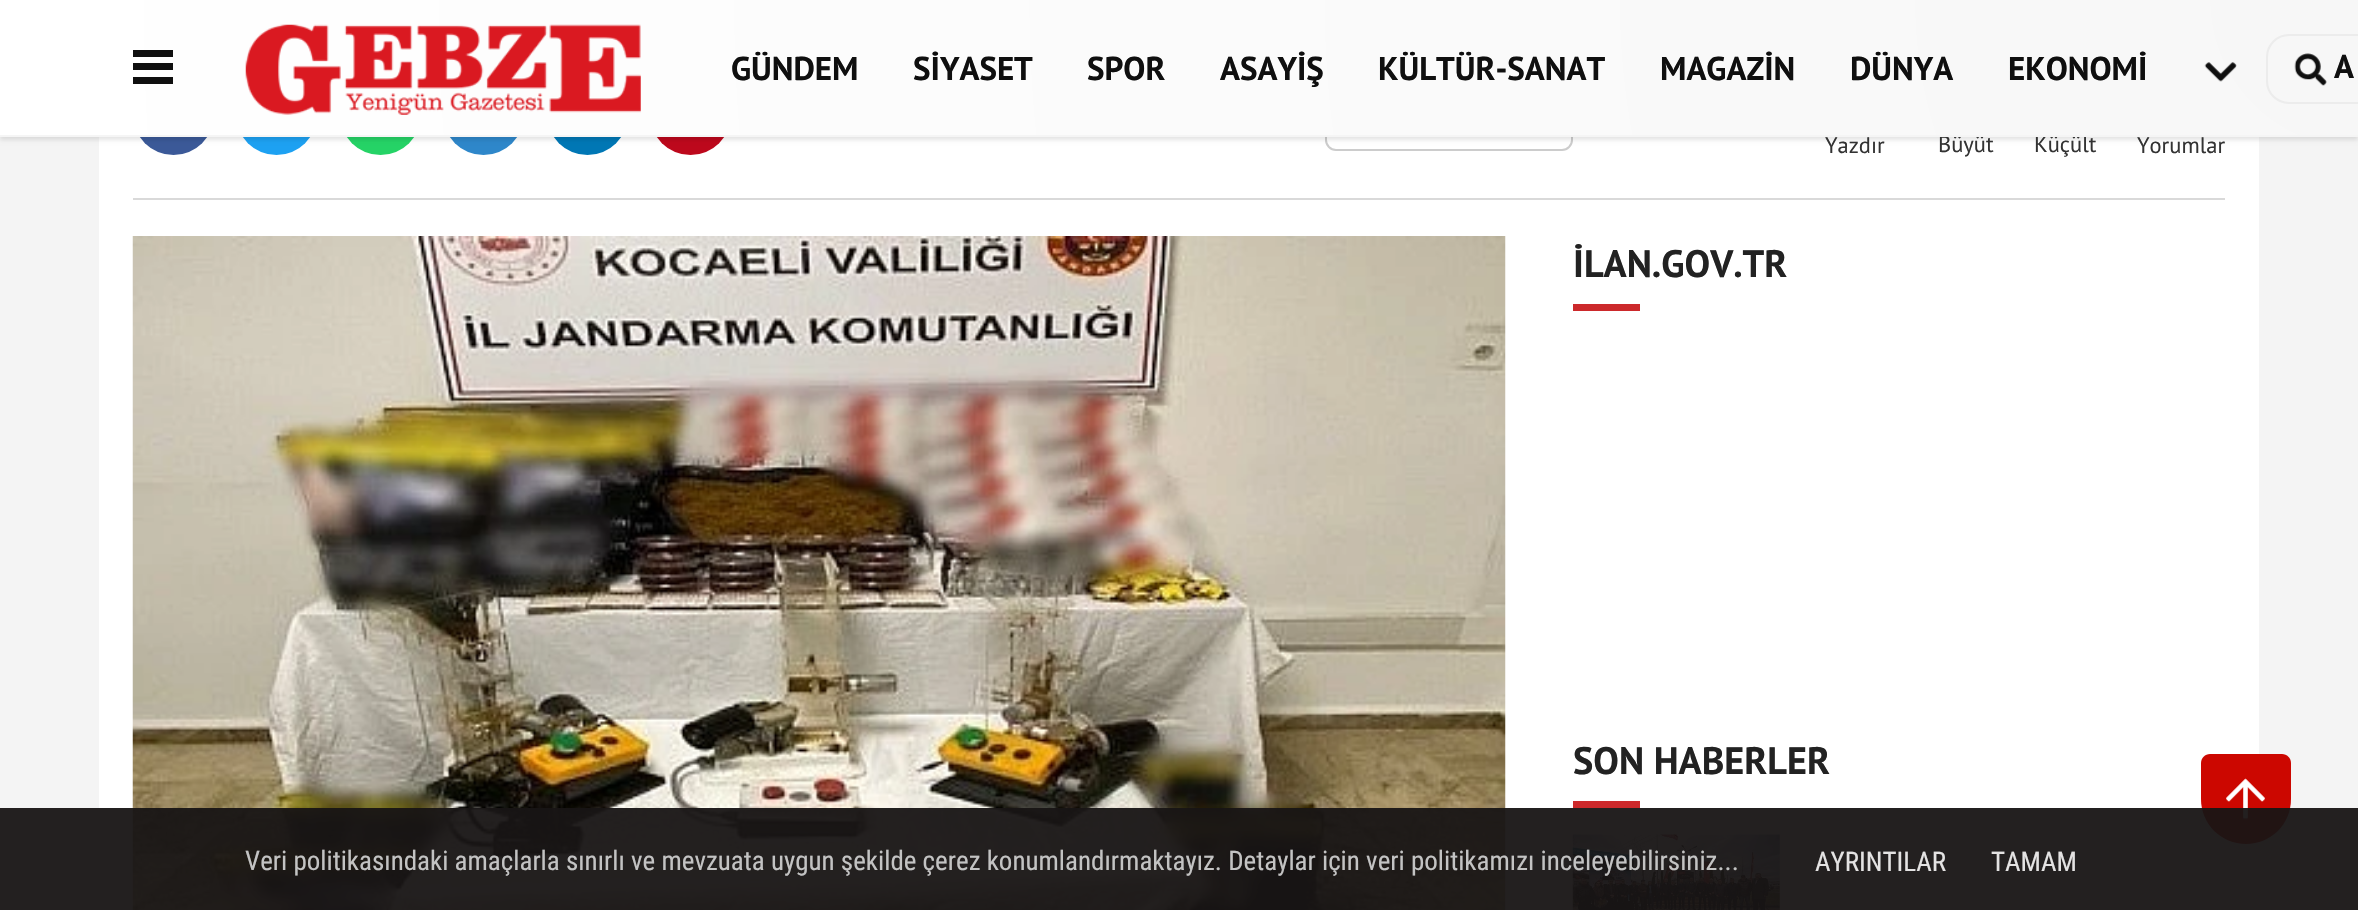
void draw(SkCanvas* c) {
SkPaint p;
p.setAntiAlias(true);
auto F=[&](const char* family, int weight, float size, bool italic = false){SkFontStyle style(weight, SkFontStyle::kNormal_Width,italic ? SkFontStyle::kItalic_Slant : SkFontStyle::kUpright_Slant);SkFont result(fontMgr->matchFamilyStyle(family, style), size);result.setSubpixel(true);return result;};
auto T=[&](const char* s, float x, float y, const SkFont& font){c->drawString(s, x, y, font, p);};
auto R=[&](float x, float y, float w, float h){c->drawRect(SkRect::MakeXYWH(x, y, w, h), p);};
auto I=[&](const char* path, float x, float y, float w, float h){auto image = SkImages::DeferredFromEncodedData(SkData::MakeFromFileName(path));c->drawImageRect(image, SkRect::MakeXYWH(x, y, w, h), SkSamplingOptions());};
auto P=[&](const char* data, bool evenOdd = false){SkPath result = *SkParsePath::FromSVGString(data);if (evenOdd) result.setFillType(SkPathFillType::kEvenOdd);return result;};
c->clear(0xfff4f4f4);
p.setColor(0xffffffff);
R(99,137,2160,773);
p.setColor(0xff3b5998);
c->drawCircle(173.5,114.5,40.5,p);
p.setColor(0xff1da1f2);
c->drawCircle(276.5,114.5,40.5,p);
p.setColor(0xff25d366);
c->drawCircle(380.5,114.5,40.5,p);
p.setColor(0xff2e87ca);
c->drawCircle(483.5,114.5,40.5,p);
p.setColor(0xff0077b5);
c->drawCircle(587.5,114.5,40.5,p);
p.setColor(0xffbd081c);
c->drawCircle(690.5,114.5,40.5,p);
p.setStroke(true);
p.setStrokeWidth(2);
p.setColor(0xffcccccc);
c->drawRoundRect(SkRect::MakeXYWH(1326,89,246,61),10,10,p);
p.setStroke(false);
p.setColor(0x1a000000);
p.setMaskFilter(SkMaskFilter::MakeBlur(kNormal_SkBlurStyle, 2));
c->drawRect(SkRect::MakeXYWH(0,2,2358,138),p);
p.setMaskFilter(nullptr);
{
const SkColor colors[] = {0xfff7f7f7,0xffffffff};
const float stops[] = {0,1};
p.setShader(SkGradientShader::MakeRadial({2358,0}, 2362, colors, stops, 2, SkTileMode::kClamp));
p.setAlpha(255);
}
R(0,0,2358,135);
auto f1 = F("PT Sans",400,22.5);
p.setShader(nullptr);
p.setColor(0xff333333);
T("Büyüt",1938,152,f1);
T("Küçült",2034,152,f1);
p.setColor(0xfff5f5f5);
R(0,135,2358,2);
p.setColor(0xff0f0f0f);
R(133,50,40,7);
R(133,63,40,7);
R(133,77,40,7);
I("1.png",245,24,396,91);
auto f2 = F("PT Sans",700,33);
T("GÜNDEM",731,80,f2);
T("SİYASET",913,80,f2);
T("SPOR",1087,80,f2);
T("ASAYİŞ",1220,80,f2);
T("KÜLTÜR-SANAT",1378,80,f2);
T("MAGAZİN",1660,80,f2);
T("DÜNYA",1850,80,f2);
T("EKONOMİ",2008,80,f2);
I("2.png",2204,62,33,20);
p.setStroke(true);
p.setColor(0xffececec);
c->drawRoundRect(SkRect::MakeXYWH(2267,35,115,68),22,22,p);
I("3.png",2294,53,33,33);
p.setStroke(false);
p.setColor(0xff0f0f0f);
T("A",2334,78,f2);
p.setColor(0xff333333);
T("Yazdır",1825,153,f1);
T("Yorumlar",2137,153,f1);
p.setColor(0xffd9d9d9);
R(133,198,2092,2);
I("4.png",132,236,1374,674);
auto f3 = F("PT Sans",700,38.25);
p.setColor(0xff222222);
T("İLAN.GOV.TR",1573,277,f3);
p.setColor(0xffcc292b);
R(1573,304,67,7);
p.setColor(0xff222222);
T("SON HABERLER",1573,774,f3);
p.setColor(0xffcc292b);
R(1573,801,67,7);
I("5.png",1572,834,208,76);
p.setColor(0xffcc0700);
c->drawPath(P("M2210 754h72c5 0 9 4 9 9v36c0 25-20 45-45 45c-25 0-45-20-45-45v-36c0-5 4-9 9-9z"),p);
I("6.png",2226,778,39,42);
p.setColor(0xf2171414);
R(0,808,2358,102);
auto f4 = F("Roboto Condensed",400,27);
p.setColor(0xffc3c3c3);
T("Veri politikasındaki amaçlarla sınırlı ve mevzuata uygun şekilde çerez konumlandırmaktayız. Detaylar için veri politikamızı inceleyebilirsiniz...",245,870,f4);
p.setColor(0xffe4e3e3);
T("AYRINTILAR",1815,871,f4);
T("TAMAM",1991,871,f4);
}
